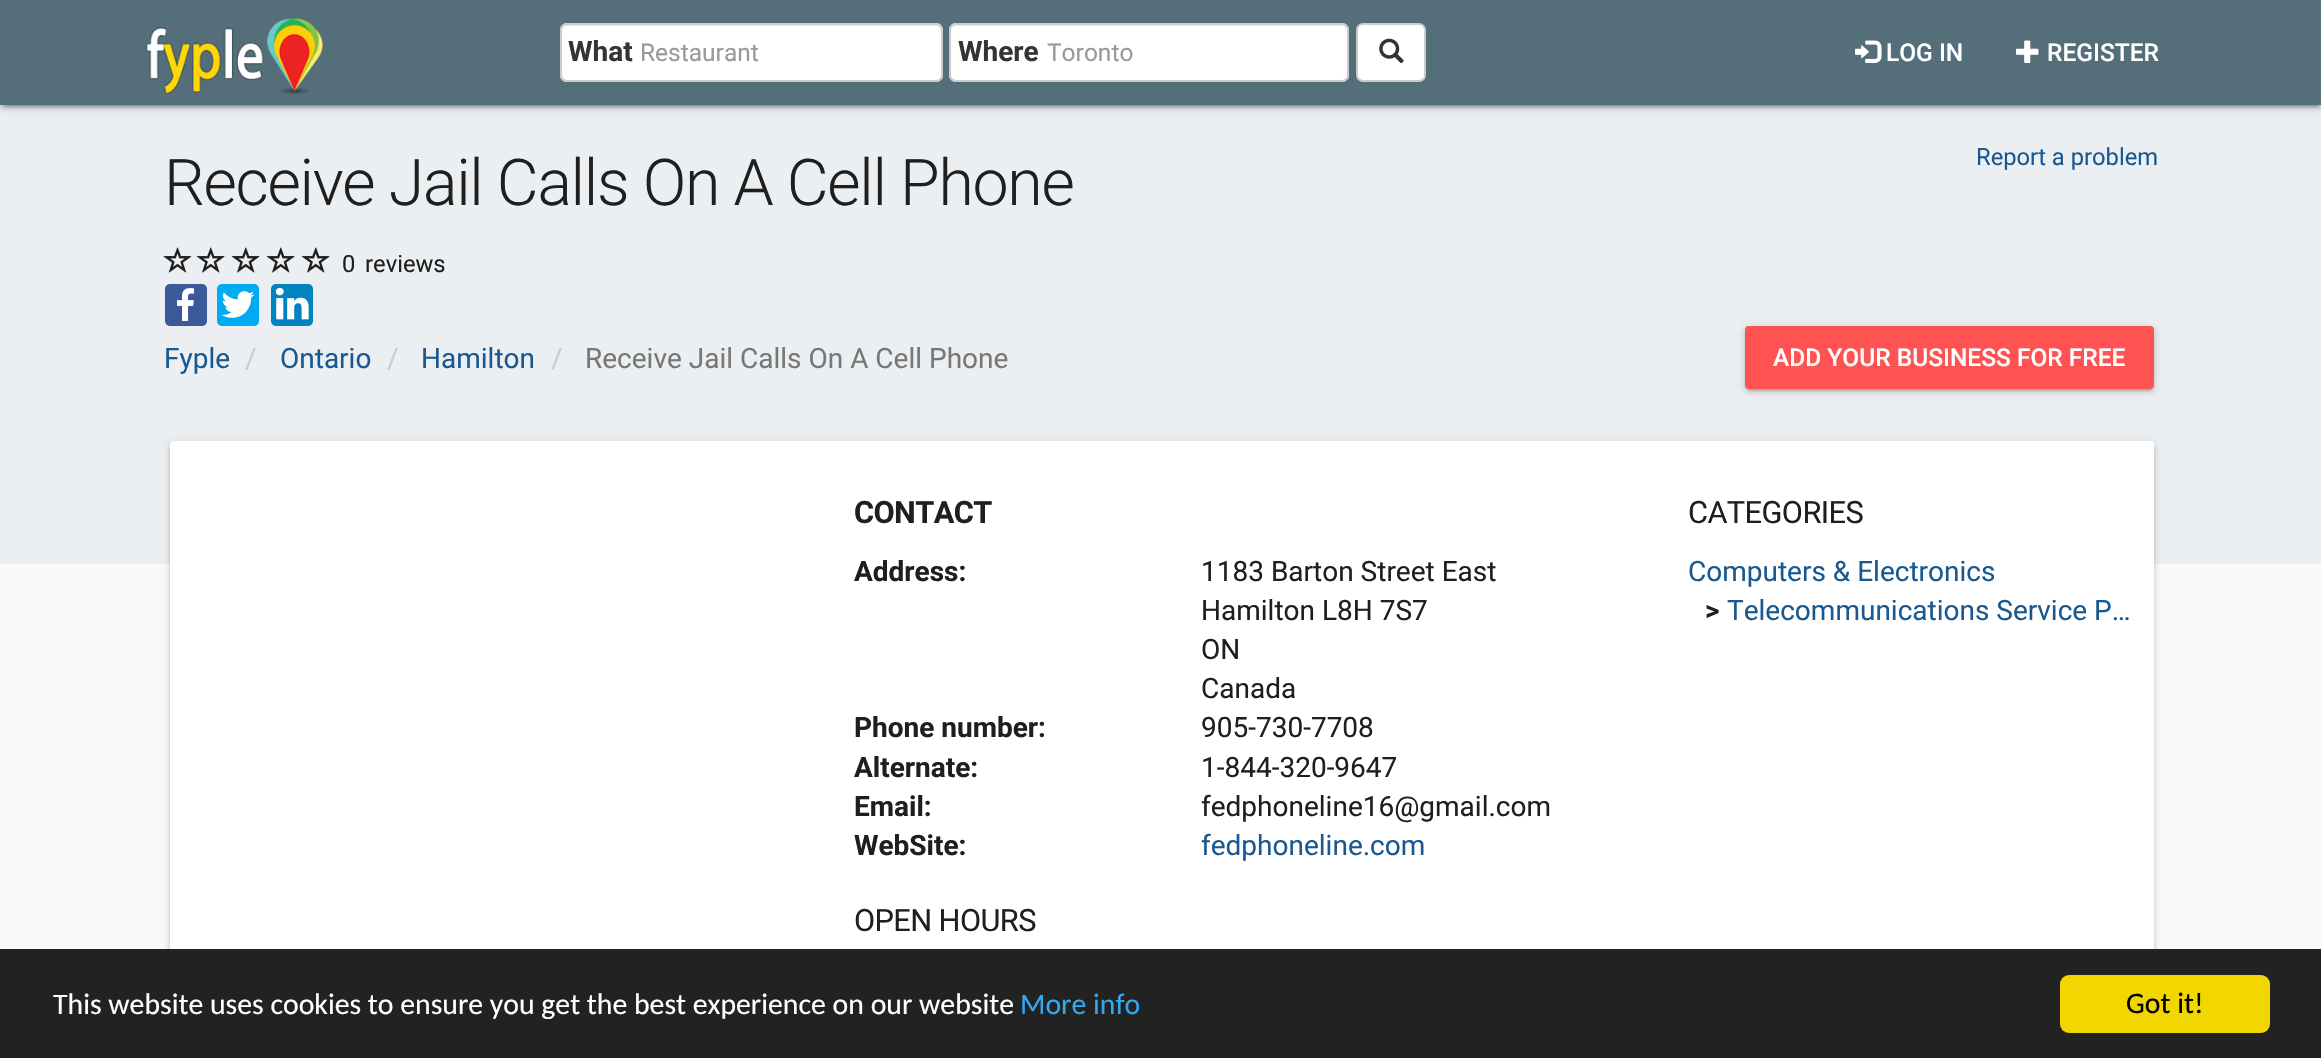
void draw(SkCanvas* c) {
SkPaint p;
p.setAntiAlias(true);
auto F=[&](const char* family, int weight, float size, bool italic = false){SkFontStyle style(weight, SkFontStyle::kNormal_Width,italic ? SkFontStyle::kItalic_Slant : SkFontStyle::kUpright_Slant);SkFont result(fontMgr->matchFamilyStyle(family, style), size);result.setSubpixel(true);return result;};
auto T=[&](const char* s, float x, float y, const SkFont& font){c->drawString(s, x, y, font, p);};
auto L=[&](const char* s, float x, float y, const SkFont& font, const SkPaint& ink, float letter, float word){std::vector<SkGlyphID> glyphs(font.countText(s, strlen(s), SkTextEncoding::kUTF8));std::vector<float> xs(glyphs.size());font.textToGlyphs(s, strlen(s), SkTextEncoding::kUTF8, glyphs);font.getXPos(glyphs, xs, x);float extra = 0;for (size_t i = 0; i < glyphs.size(); i++) {xs[i] += extra;extra += letter + word * (glyphs[i] == font.unicharToGlyph(' '));}c->drawTextBlob(SkTextBlob::MakeFromPosHGlyphs(glyphs, xs, y, font), 0, 0, ink);};
auto R=[&](float x, float y, float w, float h){c->drawRect(SkRect::MakeXYWH(x, y, w, h), p);};
auto Q=[&](float x, float y, float w, float h, float radius){c->drawRoundRect(SkRect::MakeXYWH(x, y, w, h), radius, radius, p);};
auto I=[&](const char* path, float x, float y, float w, float h){auto image = SkImages::DeferredFromEncodedData(SkData::MakeFromFileName(path));c->drawImageRect(image, SkRect::MakeXYWH(x, y, w, h), SkSamplingOptions());};
auto P=[&](const char* data, bool evenOdd = false){SkPath result = *SkParsePath::FromSVGString(data);if (evenOdd) result.setFillType(SkPathFillType::kEvenOdd);return result;};
c->clear(0xfffafafa);
p.setColor(0xffeceff1);
R(0,105,2321,459);
p.setColor(0x1f000000);
p.setMaskFilter(SkMaskFilter::MakeBlur(kNormal_SkBlurStyle, 4.5));
c->drawRect(SkRect::MakeXYWH(0,2,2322,105),p);
p.setMaskFilter(nullptr);
p.setColor(0x33000000);
p.setMaskFilter(SkMaskFilter::MakeBlur(kNormal_SkBlurStyle, 1));
c->drawRect(SkRect::MakeXYWH(4,9,2315,98),p);
p.setMaskFilter(nullptr);
p.setColor(0x24000000);
p.setMaskFilter(SkMaskFilter::MakeBlur(kNormal_SkBlurStyle, 2));
c->drawRect(SkRect::MakeXYWH(0,4,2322,105),p);
p.setMaskFilter(nullptr);
p.setColor(0xff546e7a);
R(0,0,2321,105);
I("1.png",145,18,178,76);
p.setColor(0xffffffff);
Q(560,23,383,59,7);
p.setColor(0xffececec);
c->drawPath(P("M567 26h369c3 0 6 3 6 6v-2c0-3-2-5-5-5h-370c-3 0-5 2-5 5v2c0-3 2-6 5-6z"),p);
p.setStroke(true);
p.setStrokeWidth(2);
p.setColor(0xffcccccc);
c->drawRoundRect(SkRect::MakeXYWH(561,24,381,57),6,6,p);
auto f1 = F("Roboto",700,28);
p.setStroke(false);
p.setColor(0xff343434);
T("What",568,61,f1);
auto f2 = F("Roboto",400,24.5);
p.setColor(0xff999999);
T("Restaurant",640,61,f2);
p.setColor(0xffffffff);
Q(949,23,400,59,7);
p.setColor(0xffececec);
c->drawPath(P("M956 26h386c3 0 6 3 6 6v-2c0-3-2-5-5-5h-388c-3 0-5 2-5 5v2c0-3 3-6 6-6z"),p);
p.setStroke(true);
p.setColor(0xffcccccc);
c->drawRoundRect(SkRect::MakeXYWH(950,24,398,57),6,6,p);
p.setStroke(false);
p.setColor(0xff343434);
T("Where",958,61,f1);
p.setColor(0xff999999);
T("Toronto",1047,61,f2);
p.setColor(0xffffffff);
c->drawRoundRect(SkRect::MakeXYWH(1357,24,68,57),6,6,p);
p.setStroke(true);
p.setColor(0xffcccccc);
c->drawRoundRect(SkRect::MakeXYWH(1357,24,68,57),6,6,p);
I("2.png",1379,38,25,26);
I("3.png",1855,40,27,23);
auto f3 = F("Roboto",500,24.5);
p.setStroke(false);
p.setColor(0xffffffff);
T("LOG IN",1886,61,f3);
I("4.png",2016,40,23,23);
T("REGISTER",2047,61,f3);
auto f4 = F("Roboto",300,64.4);
p.setColor(0xff1f1f1f);
L("Receive Jail Calls On A Cell Phone",164,205,f4,p,-1.3,0);
auto f5 = F("Roboto",400,23.75);
p.setColor(0xff195990);
T("Report a problem",1976,165,f5);
I("5.png",163,247,29,26);
I("6.png",196,247,29,26);
I("6.png",231,247,29,26);
I("6.png",266,247,29,26);
I("6.png",301,247,29,26);
p.setColor(0xff1f1f1f);
T("0",342,272,f5);
T("reviews",365,272,f5);
I("7.png",165,284,42,42);
I("8.png",217,284,42,42);
I("9.png",271,284,42,42);
auto f6 = F("Roboto",400,28);
p.setColor(0xff195990);
T("Fyple",164,368,f6);
p.setColor(0xffcccccc);
T("/",245,368,f6);
p.setColor(0xff195990);
T("Ontario",280,368,f6);
p.setColor(0xffcccccc);
T("/",387,368,f6);
p.setColor(0xff195990);
T("Hamilton",421,368,f6);
p.setColor(0xffcccccc);
T("/",551,368,f6);
p.setColor(0xff777777);
T("Receive Jail Calls On A Cell Phone",585,368,f6);
p.setColor(0x1f000000);
p.setMaskFilter(SkMaskFilter::MakeBlur(kNormal_SkBlurStyle, 4.5));
c->drawRoundRect(SkRect::MakeXYWH(1745,327,409,63),4,4,p);
p.setMaskFilter(nullptr);
p.setColor(0x33000000);
p.setMaskFilter(SkMaskFilter::MakeBlur(kNormal_SkBlurStyle, 1));
c->drawRect(SkRect::MakeXYWH(1748,334,403,56),p);
p.setMaskFilter(nullptr);
p.setColor(0x24000000);
p.setMaskFilter(SkMaskFilter::MakeBlur(kNormal_SkBlurStyle, 2));
c->drawRoundRect(SkRect::MakeXYWH(1745,329,409,63),4,4,p);
p.setMaskFilter(nullptr);
p.setColor(0xffff5252);
Q(1745,326,409,63,4);
p.setColor(0xffffffff);
T("ADD YOUR BUSINESS FOR FREE",1773,366,f3);
p.setColor(0x1f000000);
p.setMaskFilter(SkMaskFilter::MakeBlur(kNormal_SkBlurStyle, 4.5));
c->drawRoundRect(SkRect::MakeXYWH(170,443,1984,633),4,4,p);
p.setMaskFilter(nullptr);
p.setColor(0x24000000);
p.setMaskFilter(SkMaskFilter::MakeBlur(kNormal_SkBlurStyle, 2));
c->drawRoundRect(SkRect::MakeXYWH(170,445,1984,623),4,4,p);
p.setMaskFilter(nullptr);
p.setColor(0xffffffff);
Q(170,441,1984,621,4);
auto f7 = F("Roboto",700,30.75);
p.setColor(0xff1f1f1f);
L("CONTACT",854,523,f7,p,-.6,0);
T("Address:",854,581,f1);
T("1183 Barton Street East",1201,581,f6);
T("Hamilton L8H 7S7",1201,620,f6);
T("ON",1201,659,f6);
T("Canada",1201,698,f6);
T("Phone number:",854,737,f1);
T("905-730-7708",1201,737,f6);
T("Alternate:",854,777,f1);
T("1-844-320-9647",1201,777,f6);
T("Email:",854,816,f1);
T("fedphoneline16@gmail.com",1201,816,f6);
T("WebSite:",854,855,f1);
p.setColor(0xff195990);
T("fedphoneline.com",1201,855,f6);
auto f8 = F("Roboto",400,30.75);
p.setColor(0xff1f1f1f);
L("OPEN HOURS",854,931,f8,p,-.6,0);
L("CATEGORIES",1688,523,f8,p,-.6,0);
p.setColor(0xff195990);
T("Computers & Electronics",1688,581,f6);
p.setColor(0xff1f1f1f);
T(">",1705,620,f1);
p.setColor(0xff195990);
T("Telecommunications Service P…",1727,620,f6);
p.setColor(0xff222222);
R(0,949,2321,109);
auto f9 = F("Carlito",400,29.75);
p.setColor(0xffffffff);
T("This website uses cookies to ensure you get the best experience on our website",53,1014,f9);
p.setColor(0xff31a8f0);
T("More info",1020,1014,f9);
p.setColor(0xfff1d600);
Q(2060,975,210,58,9);
p.setColor(0xff000000);
T("Got it!",2126,1013,f9);
}
